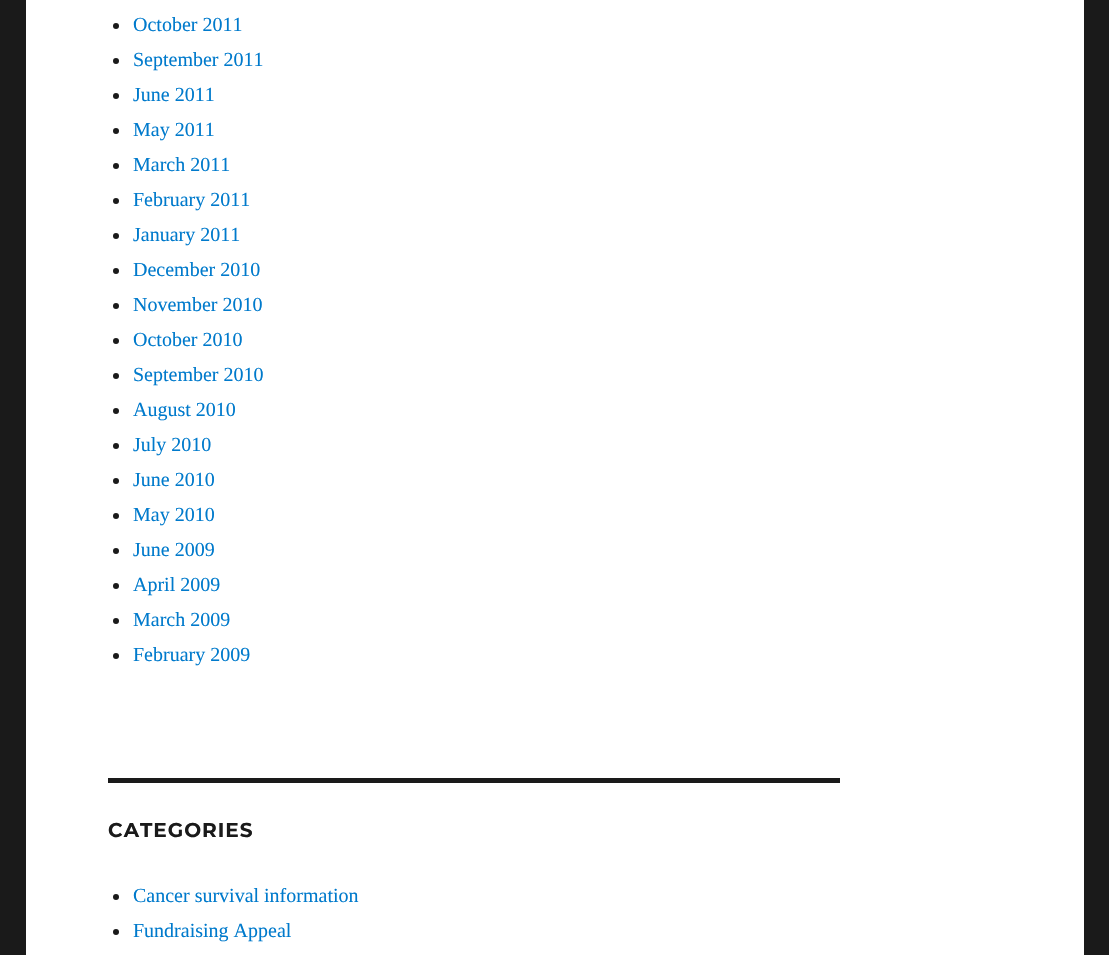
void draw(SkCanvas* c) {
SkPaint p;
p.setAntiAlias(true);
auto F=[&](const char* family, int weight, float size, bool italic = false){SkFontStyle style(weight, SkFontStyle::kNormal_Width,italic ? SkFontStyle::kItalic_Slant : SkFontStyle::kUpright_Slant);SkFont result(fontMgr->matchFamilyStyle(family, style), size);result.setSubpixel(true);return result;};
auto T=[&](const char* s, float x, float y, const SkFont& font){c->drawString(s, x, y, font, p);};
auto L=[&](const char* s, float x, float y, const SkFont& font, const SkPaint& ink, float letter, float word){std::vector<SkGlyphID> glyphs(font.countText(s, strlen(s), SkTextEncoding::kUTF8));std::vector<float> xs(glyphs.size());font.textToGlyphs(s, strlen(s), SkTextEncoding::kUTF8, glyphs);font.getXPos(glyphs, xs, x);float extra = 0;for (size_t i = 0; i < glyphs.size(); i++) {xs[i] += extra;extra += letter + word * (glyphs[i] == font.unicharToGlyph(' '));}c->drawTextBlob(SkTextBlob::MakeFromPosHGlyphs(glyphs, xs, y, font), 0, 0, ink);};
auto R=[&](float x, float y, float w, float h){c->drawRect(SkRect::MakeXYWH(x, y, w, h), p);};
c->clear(0xff1a1a1a);
p.setColor(0xffffffff);
R(26,0,1058,955);
p.setColor(0xff1a1a1a);
c->drawCircle(116,26,3,p);
auto f1 = F("Liberation Serif",400,20);
p.setColor(0xff007acc);
T("October 2011",133,31,f1);
p.setColor(0xff1a1a1a);
c->drawCircle(116,61,3,p);
p.setColor(0xff007acc);
T("September 2011",133,66,f1);
p.setColor(0xff1a1a1a);
c->drawCircle(116,96,3,p);
p.setColor(0xff007acc);
T("June 2011",133,101,f1);
p.setColor(0xff1a1a1a);
c->drawCircle(116,131,3,p);
p.setColor(0xff007acc);
T("May 2011",133,136,f1);
p.setColor(0xff1a1a1a);
c->drawCircle(116,166,3,p);
p.setColor(0xff007acc);
T("March 2011",133,171,f1);
p.setColor(0xff1a1a1a);
c->drawCircle(116,201,3,p);
p.setColor(0xff007acc);
T("February 2011",133,206,f1);
p.setColor(0xff1a1a1a);
c->drawCircle(116,236,3,p);
p.setColor(0xff007acc);
T("January 2011",133,241,f1);
p.setColor(0xff1a1a1a);
c->drawCircle(116,271,3,p);
p.setColor(0xff007acc);
T("December 2010",133,276,f1);
p.setColor(0xff1a1a1a);
c->drawCircle(116,306,3,p);
p.setColor(0xff007acc);
T("November 2010",133,311,f1);
p.setColor(0xff1a1a1a);
c->drawCircle(116,341,3,p);
p.setColor(0xff007acc);
T("October 2010",133,346,f1);
p.setColor(0xff1a1a1a);
c->drawCircle(116,376,3,p);
p.setColor(0xff007acc);
T("September 2010",133,381,f1);
p.setColor(0xff1a1a1a);
c->drawCircle(116,411,3,p);
p.setColor(0xff007acc);
T("August 2010",133,416,f1);
p.setColor(0xff1a1a1a);
c->drawCircle(116,446,3,p);
p.setColor(0xff007acc);
T("July 2010",133,451,f1);
p.setColor(0xff1a1a1a);
c->drawCircle(116,481,3,p);
p.setColor(0xff007acc);
T("June 2010",133,486,f1);
p.setColor(0xff1a1a1a);
c->drawCircle(116,516,3,p);
p.setColor(0xff007acc);
T("May 2010",133,521,f1);
p.setColor(0xff1a1a1a);
c->drawCircle(116,551,3,p);
p.setColor(0xff007acc);
T("June 2009",133,556,f1);
p.setColor(0xff1a1a1a);
c->drawCircle(116,586,3,p);
p.setColor(0xff007acc);
T("April 2009",133,591,f1);
p.setColor(0xff1a1a1a);
c->drawCircle(116,621,3,p);
p.setColor(0xff007acc);
T("March 2009",133,626,f1);
p.setColor(0xff1a1a1a);
c->drawCircle(116,656,3,p);
p.setColor(0xff007acc);
T("February 2009",133,661,f1);
p.setColor(0xff1a1a1a);
R(108,778,732,5);
auto f2 = F("Montserrat",100,20);
L("CATEGORIES",108,837,f2,p,1,0);
c->drawCircle(116,897,3,p);
p.setColor(0xff007acc);
T("Cancer survival information",133,902,f1);
p.setColor(0xff1a1a1a);
c->drawCircle(116,932,3,p);
p.setColor(0xff007acc);
T("Fundraising Appeal",133,937,f1);
}
